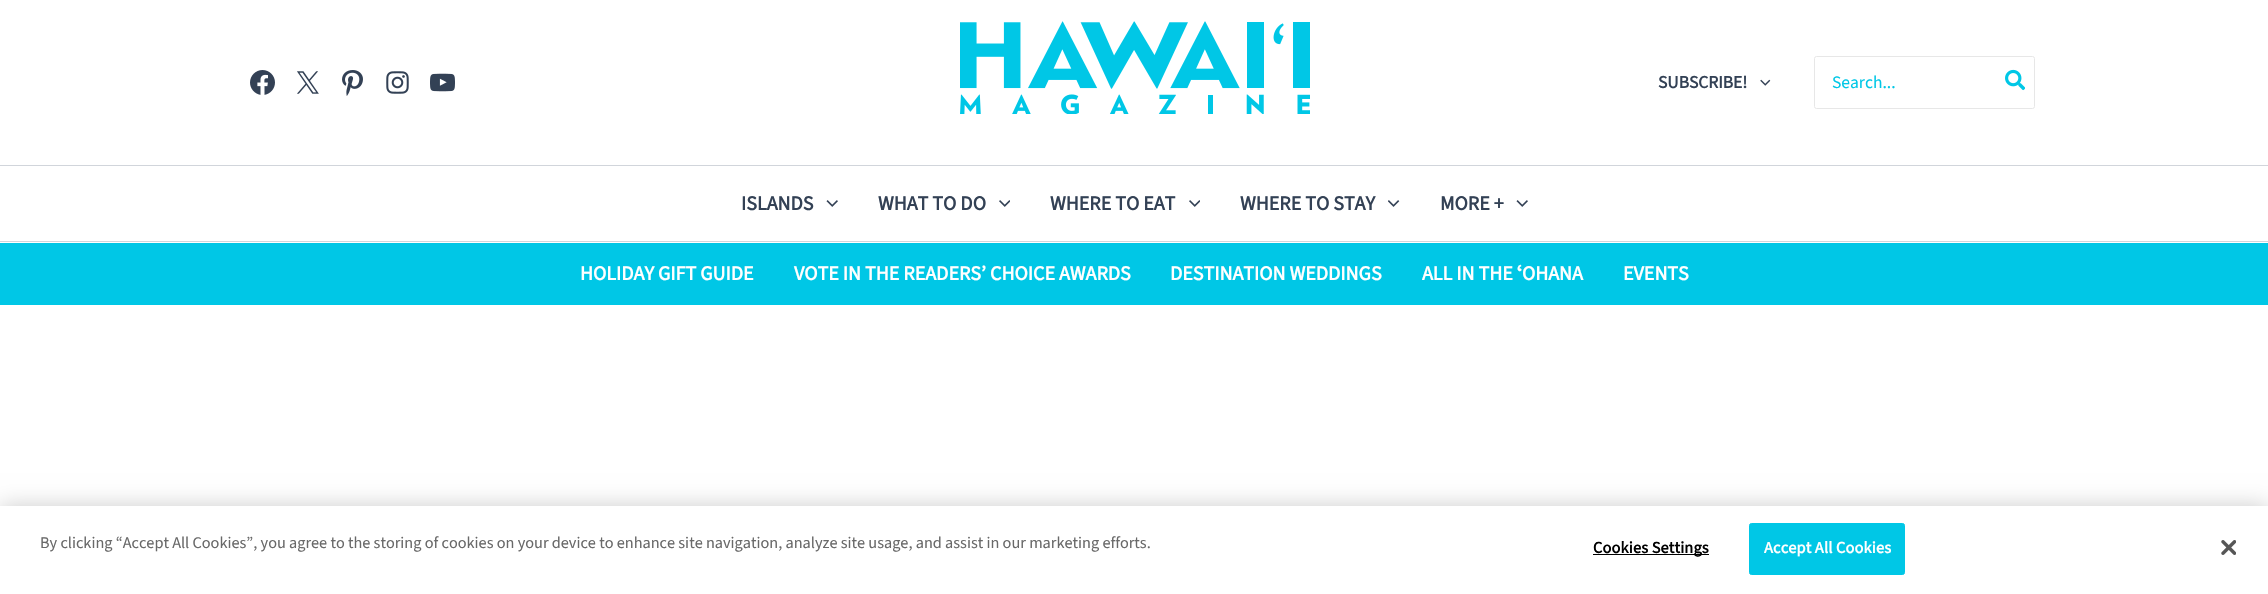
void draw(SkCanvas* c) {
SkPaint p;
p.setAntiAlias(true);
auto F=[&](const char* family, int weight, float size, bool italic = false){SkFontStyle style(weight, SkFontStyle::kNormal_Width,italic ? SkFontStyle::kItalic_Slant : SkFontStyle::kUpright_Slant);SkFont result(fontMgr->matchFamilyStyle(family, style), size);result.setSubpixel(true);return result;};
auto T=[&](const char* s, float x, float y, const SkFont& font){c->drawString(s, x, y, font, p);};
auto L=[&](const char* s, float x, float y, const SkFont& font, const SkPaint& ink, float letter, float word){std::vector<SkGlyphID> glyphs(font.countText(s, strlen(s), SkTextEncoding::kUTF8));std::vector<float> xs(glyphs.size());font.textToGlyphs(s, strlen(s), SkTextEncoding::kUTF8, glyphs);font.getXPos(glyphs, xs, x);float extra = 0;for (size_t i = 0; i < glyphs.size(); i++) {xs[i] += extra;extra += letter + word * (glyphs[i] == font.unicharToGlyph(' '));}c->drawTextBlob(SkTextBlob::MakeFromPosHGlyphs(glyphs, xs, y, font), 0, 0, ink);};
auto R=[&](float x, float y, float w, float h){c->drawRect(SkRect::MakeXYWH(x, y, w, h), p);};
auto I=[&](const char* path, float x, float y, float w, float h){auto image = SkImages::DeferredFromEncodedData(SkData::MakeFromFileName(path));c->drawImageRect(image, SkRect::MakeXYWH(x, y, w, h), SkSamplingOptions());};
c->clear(0xffffffff);
p.setColor(0xffd1d5db);
R(0,165,2268,1);
I("1.png",250,70,25,25);
I("2.png",297,71,22,23);
I("3.png",342,70,21,26);
I("4.png",386,71,23,23);
I("5.png",430,73,25,19);
I("6.png",960,21,350,93);
auto f1 = F("Source Sans 3",700,17.5);
p.setColor(0xff334155);
T("SUBSCRIBE!",1658,88,f1);
I("7.png",1760,79,11,7);
p.setStroke(true);
p.setStrokeWidth(1);
p.setColor(0xffe7e7e7);
c->drawRoundRect(SkRect::MakeXYWH(1814.5,56.5,220,52),2,2,p);
auto f2 = F("Source Sans 3",200,17.5);
p.setStroke(false);
p.setColor(0xff00c7e6);
T("Search...",1832,88,f2);
I("8.png",2005,69,20,22);
p.setColor(0xffd1d5db);
R(0,241,2268,1);
auto f3 = F("Source Sans 3",700,20);
p.setColor(0xff334155);
T("ISLANDS",741,210,f3);
I("9.png",826,200,12,7);
T("WHAT TO DO",878,210,f3);
I("10.png",999,200,11,7);
T("WHERE TO EAT",1050,210,f3);
I("10.png",1189,200,11,7);
T("WHERE TO STAY",1240,210,f3);
I("11.png",1388,200,12,7);
T("MORE +",1440,210,f3);
I("9.png",1516,200,12,7);
p.setColor(0xff00c7e6);
R(0,243,2268,62);
p.setColor(0xffffffff);
T("HOLIDAY GIFT GUIDE",580,280,f3);
T("VOTE IN THE READERS’ CHOICE AWARDS",794,280,f3);
T("DESTINATION WEDDINGS",1170,280,f3);
T("ALL IN THE ʻOHANA",1422,280,f3);
T("EVENTS",1623,280,f3);
p.setColor(0x33000000);
p.setMaskFilter(SkMaskFilter::MakeBlur(kNormal_SkBlurStyle, 11));
c->drawRect(SkRect::MakeXYWH(0,506,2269,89),p);
p.setMaskFilter(nullptr);
p.setColor(0xffffffff);
R(0,506,2268,88);
auto f4 = F("Source Sans 3",200,16.25);
p.setColor(0xff696969);
T("By clicking “Accept All Cookies”, you agree to the storing of cookies on your device to enhance site navigation, analyze site usage, and assist in our marketing efforts.",40,548,f4);
p.setColor(0xff000000);
R(1593,554,116,1);
auto f5 = F("Source Sans 3",700,16.25);
L("Cookies Settings",1593,553,f5,p,.2,0);
p.setColor(0xff00c7e6);
c->drawRoundRect(SkRect::MakeXYWH(1749.5,523.5,155,51),2,2,p);
p.setStroke(true);
c->drawRoundRect(SkRect::MakeXYWH(1749.5,523.5,155,51),2,2,p);
p.setStroke(false);
p.setColor(0xffffffff);
L("Accept All Cookies",1764,553,f5,p,.2,0);
I("12.png",2221,540,15,15);
}
